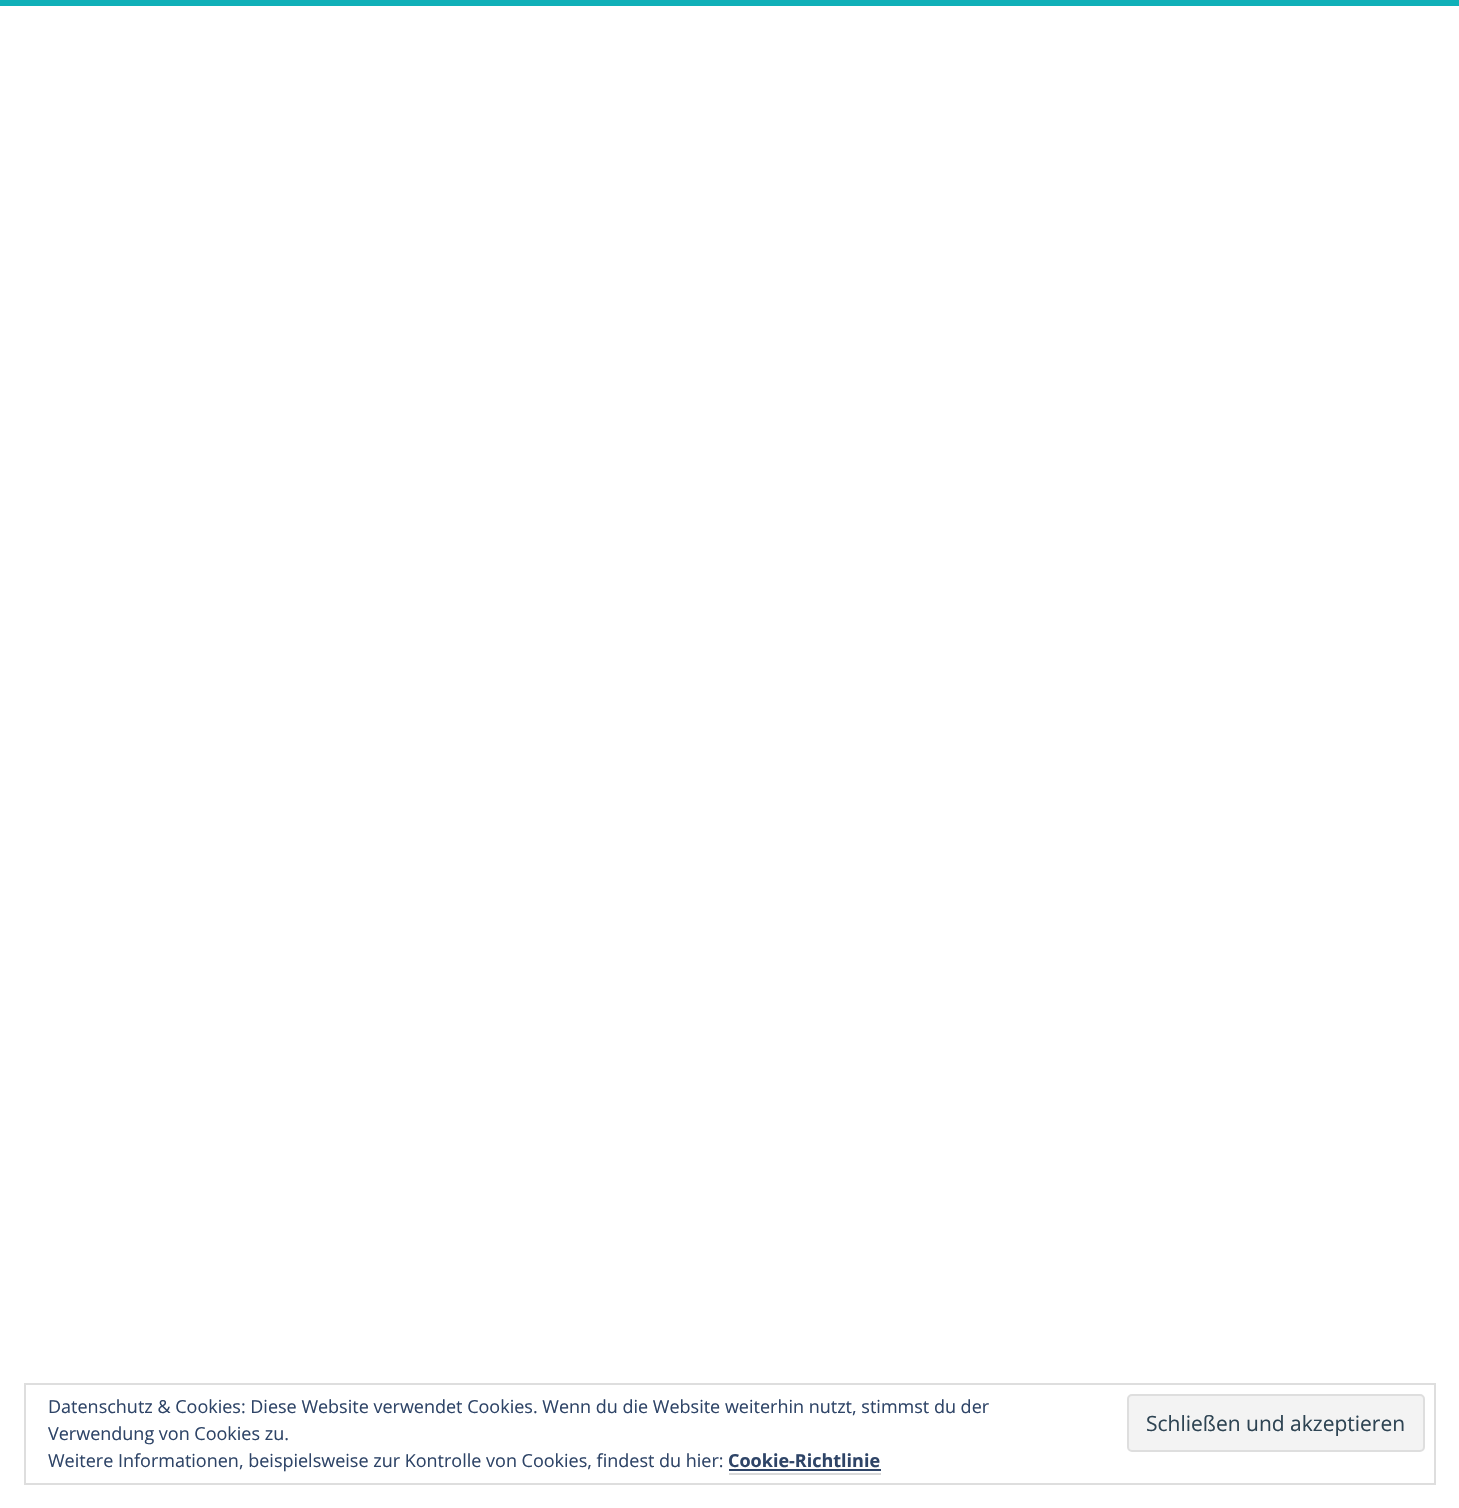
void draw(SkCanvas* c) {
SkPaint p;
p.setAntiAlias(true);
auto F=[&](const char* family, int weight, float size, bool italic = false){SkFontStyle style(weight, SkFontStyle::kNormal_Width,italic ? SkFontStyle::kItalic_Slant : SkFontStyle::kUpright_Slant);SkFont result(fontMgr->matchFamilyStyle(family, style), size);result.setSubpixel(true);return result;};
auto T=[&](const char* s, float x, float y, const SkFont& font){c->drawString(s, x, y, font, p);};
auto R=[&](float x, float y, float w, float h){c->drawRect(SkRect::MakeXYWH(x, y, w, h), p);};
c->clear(0xffffffff);
p.setColor(0xff10b0b8);
R(0,0,1459,6);
p.setStroke(true);
p.setStrokeWidth(2);
p.setColor(0xffdedede);
c->drawRect(SkRect::MakeXYWH(25,1384,1410,100),p);
auto f1 = F("Open Sans",400,18);
p.setStroke(false);
p.setColor(0xff2e4467);
T("Datenschutz & Cookies: Diese Website verwendet Cookies. Wenn du die Website weiterhin nutzt, stimmst du der",48,1413,f1);
T("Verwendung von Cookies zu.",48,1440,f1);
p.setColor(0xfff3f3f3);
c->drawRoundRect(SkRect::MakeXYWH(1128,1395,296,56),4,4,p);
p.setStroke(true);
p.setColor(0xffdedede);
c->drawRoundRect(SkRect::MakeXYWH(1128,1395,296,56),4,4,p);
auto f2 = F("Open Sans",400,21);
p.setStroke(false);
p.setColor(0xff2e4453);
T("Schließen und akzeptieren",1146,1431,f2);
p.setColor(0xff2e4467);
T("Weitere Informationen, beispielsweise zur Kontrolle von Cookies, findest du hier:",48,1467,f1);
auto f3 = F("Open Sans",700,18);
T("Cookie-Richtlinie",728,1467,f3);
p.setColor(0xffd9d9d9);
R(729,1473,152,2);
p.setColor(0xff2e4467);
R(729,1469,152,2);
}
